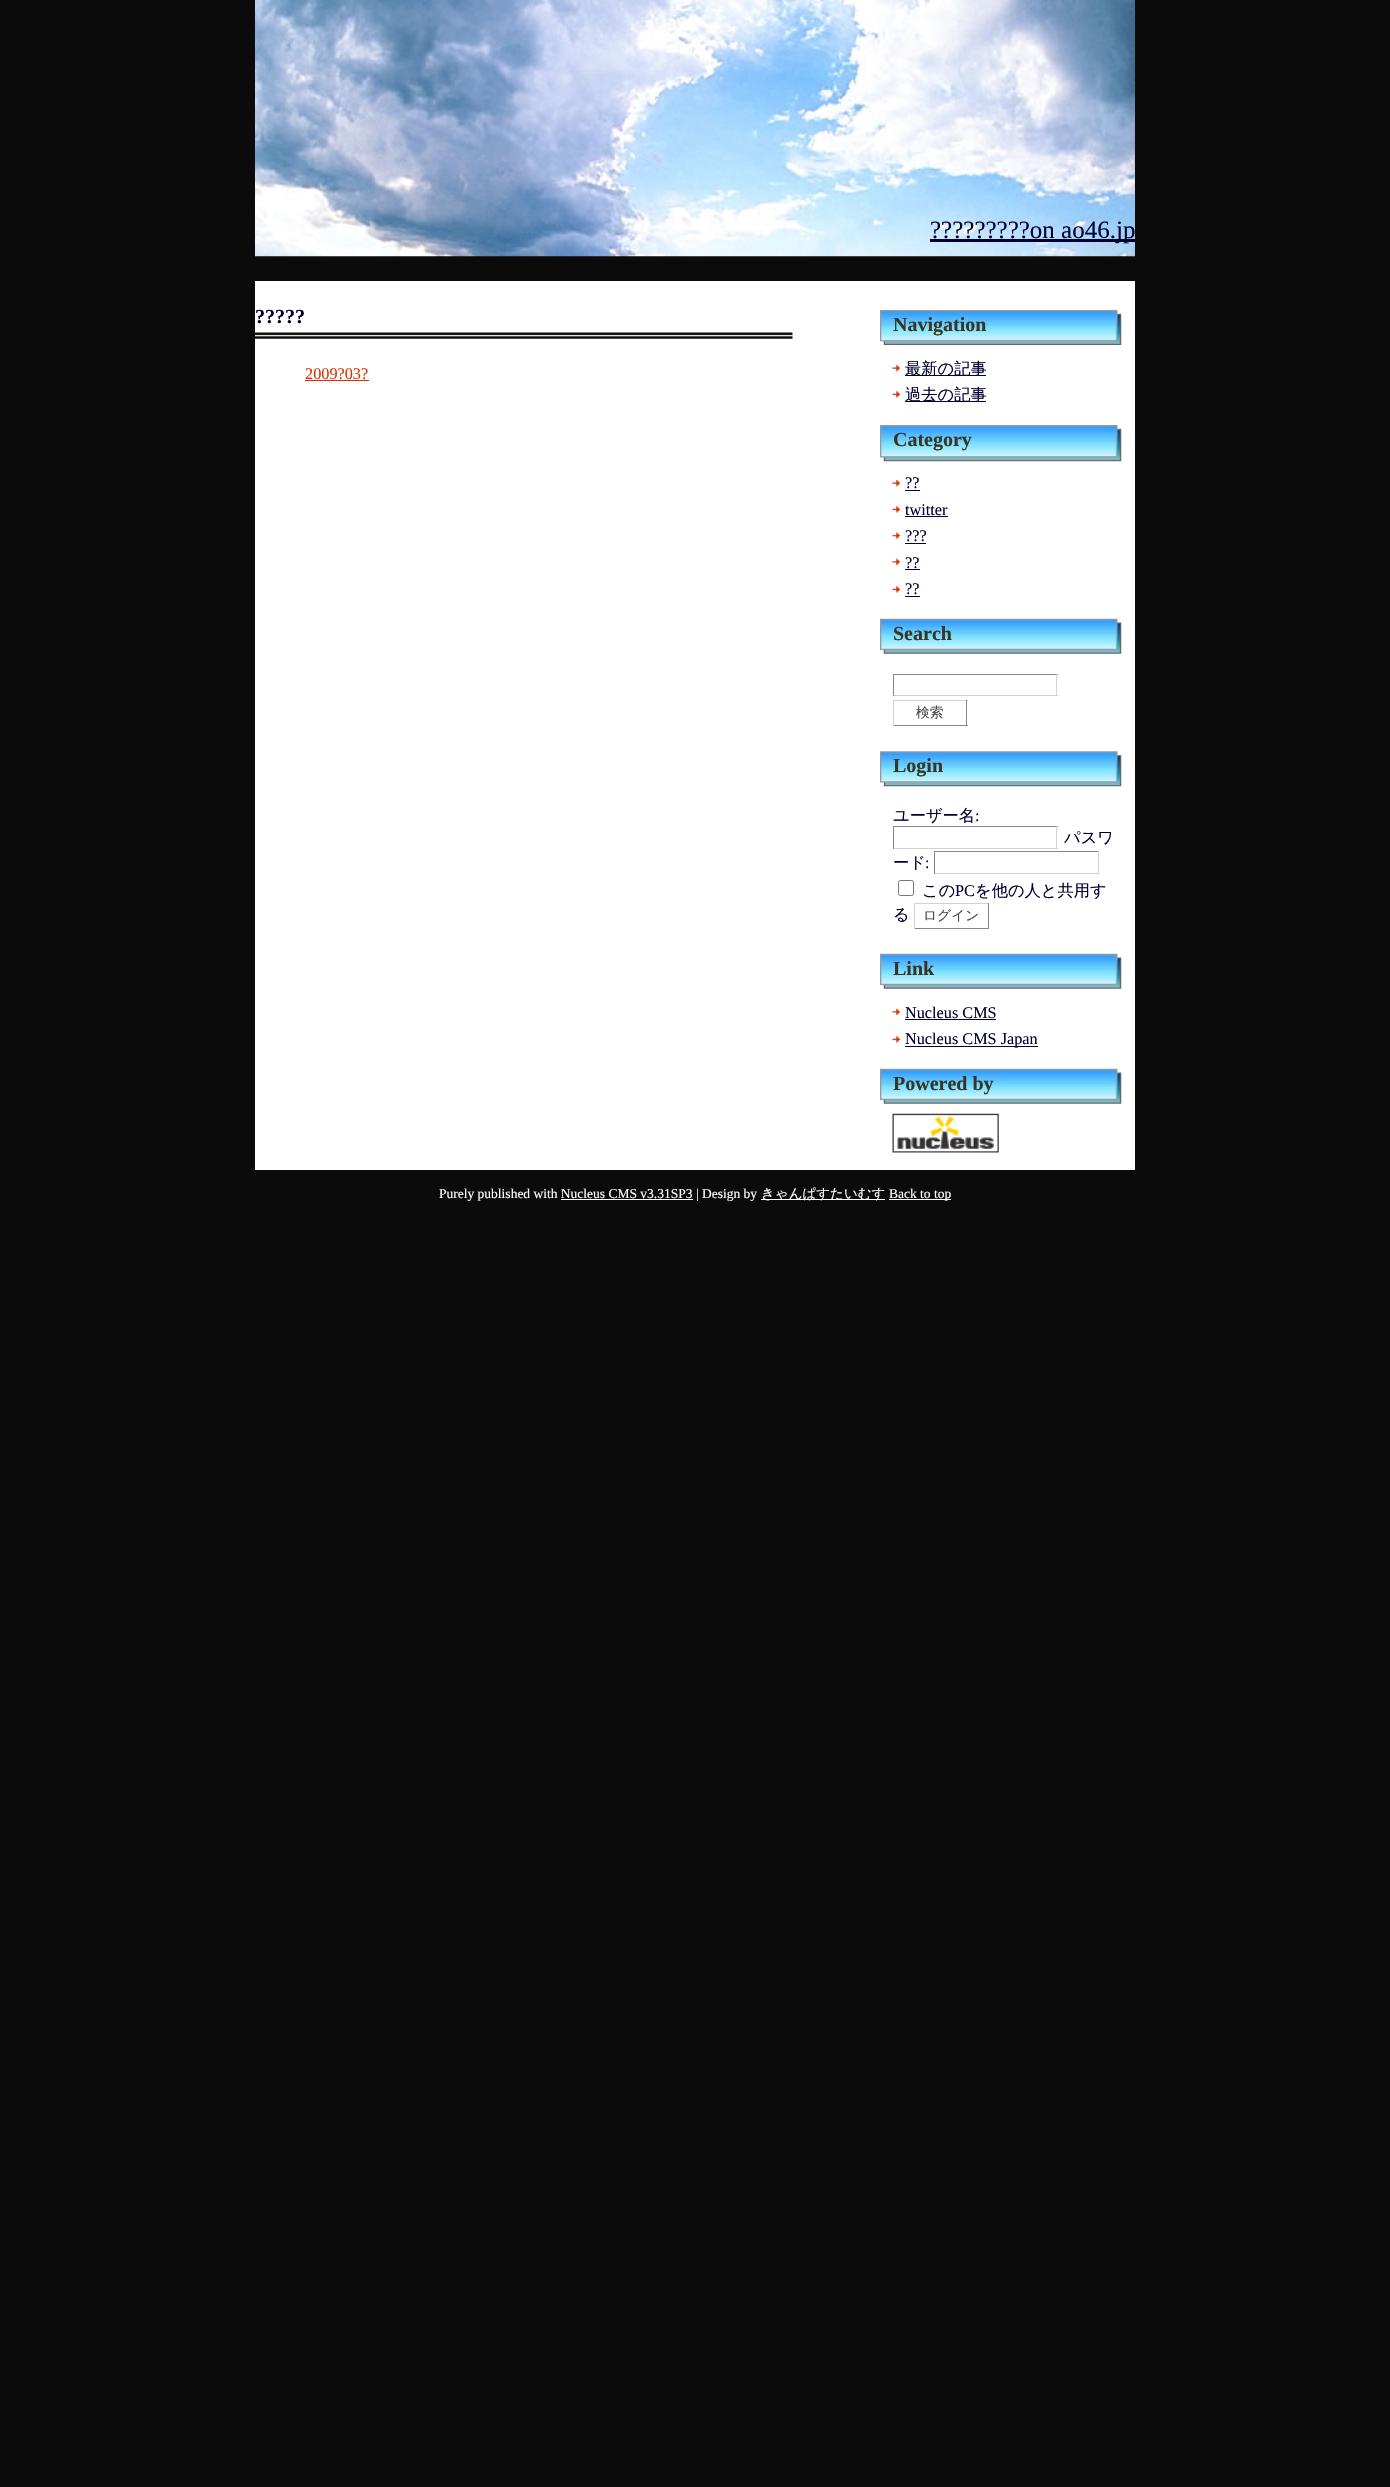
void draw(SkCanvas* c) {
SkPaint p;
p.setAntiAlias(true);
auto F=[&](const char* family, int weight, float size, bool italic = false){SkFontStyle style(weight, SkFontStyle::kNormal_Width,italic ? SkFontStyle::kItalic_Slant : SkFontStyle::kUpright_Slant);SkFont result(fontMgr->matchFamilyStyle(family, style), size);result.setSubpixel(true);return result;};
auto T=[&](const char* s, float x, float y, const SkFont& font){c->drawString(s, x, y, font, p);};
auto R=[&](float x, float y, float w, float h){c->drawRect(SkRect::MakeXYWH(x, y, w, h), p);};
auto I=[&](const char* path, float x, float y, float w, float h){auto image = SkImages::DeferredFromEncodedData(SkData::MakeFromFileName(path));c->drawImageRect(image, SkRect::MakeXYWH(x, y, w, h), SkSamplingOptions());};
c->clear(0xff0b0b0b);
I("1.png",255,0,880,257);
p.setColor(0xff000033);
R(930,239,205,3);
auto f1 = F("Liberation Serif",400,25);
T("?\077?\077?\077?\077?on ao46.jp",930,238,f1);
p.setColor(0xffffffff);
R(255,281,880,889);
I("2.png",255,332,538,7);
auto f2 = F("Liberation Serif",700,20);
p.setColor(0xff000033);
T("?\077?\077?",255,323,f2);
auto f3 = F("Liberation Serif",400,16.25);
p.setColor(0xffd93202);
T("2009?03?",305,379,f3);
R(305,380,64,1);
I("3.png",880,310,242,35);
p.setColor(0xff3a3523);
T("Navigation",893,331,f2);
I("4.png",892,365,8,7);
p.setColor(0xff000033);
R(905,375,81,1);
auto f4 = F("WenQuanYi Zen Hei",500,16.25);
T("最新の記事",905,374,f4);
I("5.png",892,391,8,7);
R(905,401,81,1);
T("過去の記事",905,400,f4);
I("6.png",880,425,242,37);
p.setColor(0xff3a3523);
T("Category",893,446,f2);
I("4.png",892,480,8,7);
p.setColor(0xff000033);
T("?\077",905,488,f3);
R(905,490,15,1);
I("5.png",892,506,8,7);
T("twitter",905,515,f3);
R(905,516,43,1);
I("7.png",892,532,8,7);
T("?\077?",905,541,f3);
R(905,543,21,1);
I("8.png",892,558,8,7);
T("?\077",905,568,f3);
R(905,569,15,1);
I("5.png",892,586,8,7);
T("?\077",905,594,f3);
R(905,596,15,1);
I("9.png",880,618,242,36);
p.setColor(0xff3a3523);
T("Search",893,640,f2);
p.setColor(0xff868686);
R(893,674,165,1);
p.setColor(0xffd4d2cf);
R(1056,674,1,22);
R(893,695,165,1);
p.setColor(0xff868686);
R(893,674,1,22);
p.setColor(0xffd4d2cf);
R(893,700,75,1);
p.setColor(0xff868686);
R(966,700,1,26);
R(893,725,75,1);
p.setColor(0xffd4d2cf);
R(893,700,1,26);
auto f5 = F("WenQuanYi Zen Hei",500,13.75);
p.setColor(0xff494949);
T("検索",916,717,f5);
I("10.png",880,751,242,36);
p.setColor(0xff3a3523);
T("Login",893,772,f2);
p.setColor(0xff000033);
T("ユーザー名",893,821,f4);
T(":",975,821,f3);
p.setColor(0xff868686);
R(893,826,165,1);
p.setColor(0xffd4d2cf);
R(1056,826,1,23);
R(893,848,165,1);
p.setColor(0xff868686);
R(893,826,1,23);
p.setColor(0xff000033);
T("パスワ",1064,843,f4);
T("ード",893,868,f4);
T(":",925,868,f3);
p.setColor(0xff868686);
R(934,851,165,1);
p.setColor(0xffd4d2cf);
R(1098,851,1,23);
R(934,873,165,1);
p.setColor(0xff868686);
R(934,851,1,23);
p.setStroke(true);
p.setStrokeWidth(1);
p.setColor(0xff767676);
c->drawRoundRect(SkRect::MakeXYWH(898.5,880.5,15,15),2,2,p);
p.setStroke(false);
p.setColor(0xff000033);
T("この",922,896,f4);
T("PC",955,896,f3);
T("を他の人と共用す",975,896,f4);
T("る",893,920,f4);
p.setColor(0xffd4d2cf);
R(914,903,75,1);
p.setColor(0xff868686);
R(988,903,1,26);
R(914,928,75,1);
p.setColor(0xffd4d2cf);
R(914,903,1,26);
p.setColor(0xff494949);
T("ログイン",923,920,f5);
I("9.png",880,953,242,36);
p.setColor(0xff3a3523);
T("Link",893,975,f2);
I("8.png",892,1008,8,7);
p.setColor(0xff000033);
T("Nucleus CMS",905,1018,f3);
R(905,1019,91,1);
I("5.png",892,1036,8,7);
R(905,1046,133,1);
T("Nucleus CMS Japan",905,1044,f3);
I("9.png",880,1068,242,36);
p.setColor(0xff3a3523);
T("Powered by",893,1090,f2);
I("11.png",892,1113,107,40);
auto f6 = F("Liberation Serif",400,13.5);
p.setColor(0xffffffff);
T("Purely published with Nucleus CMS v3.31SP3 | Design by",439,1198,f6);
R(561,1199,132,1);
R(761,1199,124,1);
auto f7 = F("WenQuanYi Zen Hei",500,13.5);
T("きゃんぱすたいむす",761,1198,f7);
R(889,1199,62,1);
T("Back to top",889,1198,f6);
}
